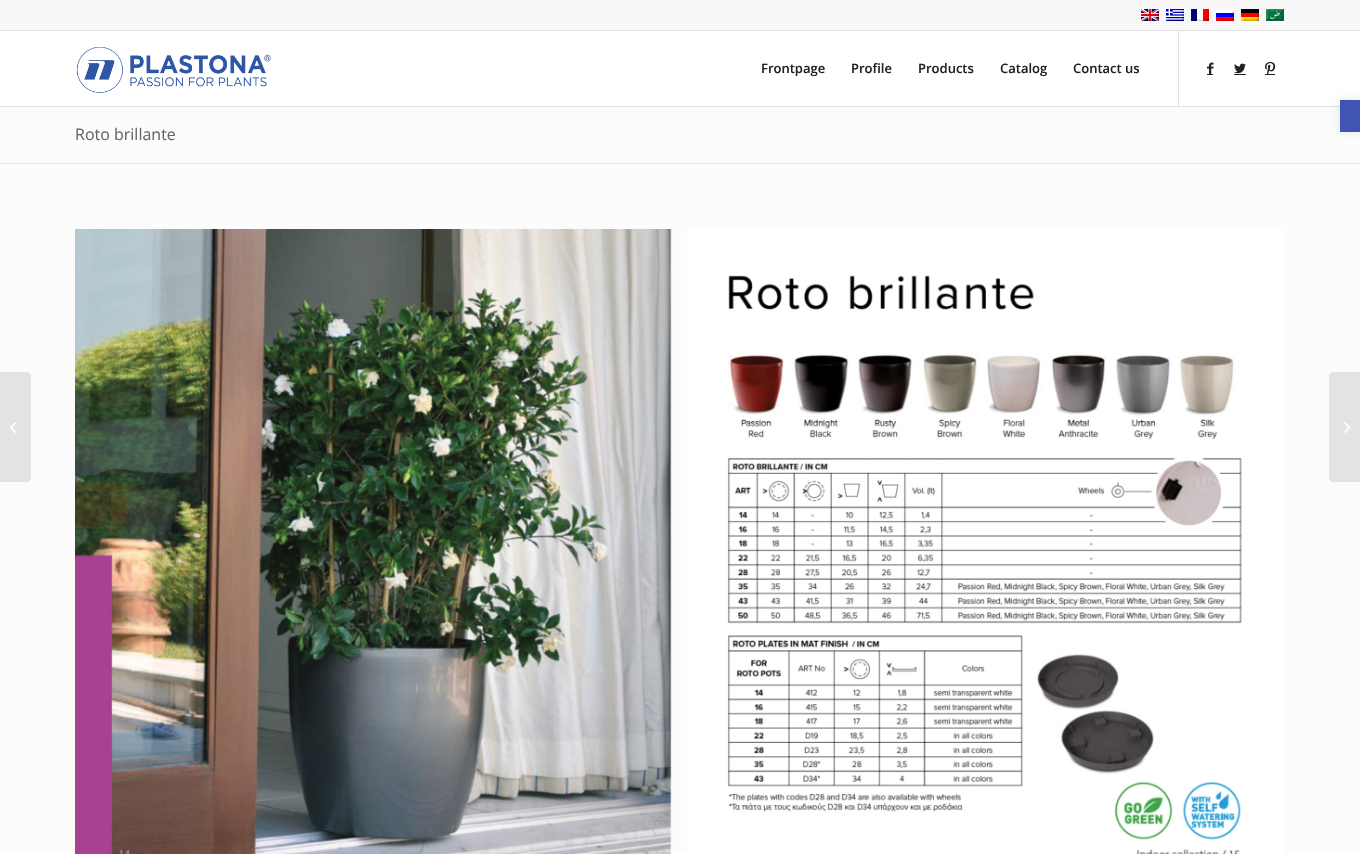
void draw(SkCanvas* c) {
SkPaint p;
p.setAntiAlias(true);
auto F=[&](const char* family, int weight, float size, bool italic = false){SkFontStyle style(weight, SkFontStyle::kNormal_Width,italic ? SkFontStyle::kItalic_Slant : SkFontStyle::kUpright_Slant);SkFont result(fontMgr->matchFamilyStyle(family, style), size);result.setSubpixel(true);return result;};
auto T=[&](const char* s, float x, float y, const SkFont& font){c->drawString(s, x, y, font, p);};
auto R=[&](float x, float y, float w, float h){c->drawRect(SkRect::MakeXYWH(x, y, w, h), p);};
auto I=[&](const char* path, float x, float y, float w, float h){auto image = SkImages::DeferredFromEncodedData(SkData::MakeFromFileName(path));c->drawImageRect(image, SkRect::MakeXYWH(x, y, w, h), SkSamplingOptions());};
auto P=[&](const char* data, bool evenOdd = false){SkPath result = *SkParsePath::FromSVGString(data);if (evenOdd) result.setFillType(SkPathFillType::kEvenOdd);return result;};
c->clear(0xffffffff);
p.setColor(0xfff8f8f8);
R(0,0,1360,30);
p.setColor(0xffe1e1e1);
R(0,30,1360,1);
I("1.png",1141,9,18,12);
I("2.png",1166,9,18,12);
I("3.png",1191,9,18,12);
I("4.png",1216,9,18,12);
I("5.png",1241,9,18,12);
I("6.png",1266,9,18,12);
R(0,106,1340,1);
I("7.png",76,47,195,46);
R(1178,31,1,75);
auto f1 = F("Open Sans",600,13);
p.setColor(0xff222222);
T("Frontpage",761,73,f1);
T("Profile",851,73,f1);
T("Products",918,73,f1);
T("Catalog",1000,73,f1);
T("Contact us",1073,73,f1);
I("8.png",1207,62,7,12);
R(1207,74,6,1);
I("9.png",1234,63,12,11);
R(1234,74,12,1);
I("10.png",1265,61,11,13);
R(1265,74,10,1);
p.setColor(0xfffcfcfc);
R(0,107,1360,56);
auto f2 = F("Open Sans",400,16);
p.setColor(0xff666666);
T("Roto brillante",75,140,f2);
p.setColor(0xfffcfcfc);
R(0,164,1360,690);
p.setColor(0xffe1e1e1);
R(0,163,1360,1);
I("11.png",75,229,597,625);
p.setColor(0xffffffff);
R(687,229,598,625);
I("12.png",727,275,515,579);
p.setColor(0xffe3e3e3);
c->drawPath(P("M0 372h27c2 0 4 2 4 4v102c0 2-2 4-4 4h-27z"),p);
I("13.png",10,422,7,11);
c->drawPath(P("M1333 372h27v110h-27c-2 0-4-2-4-4v-102c0-2 2-4 4-4z"),p);
I("14.png",1344,422,7,11);
p.setColor(0x1a000000);
p.setMaskFilter(SkMaskFilter::MakeBlur(kNormal_SkBlurStyle, 5));
c->drawRect(SkRect::MakeXYWH(1340,100,20,32),p);
p.setMaskFilter(nullptr);
p.setColor(0xff4054b2);
R(1340,100,20,32);
}
